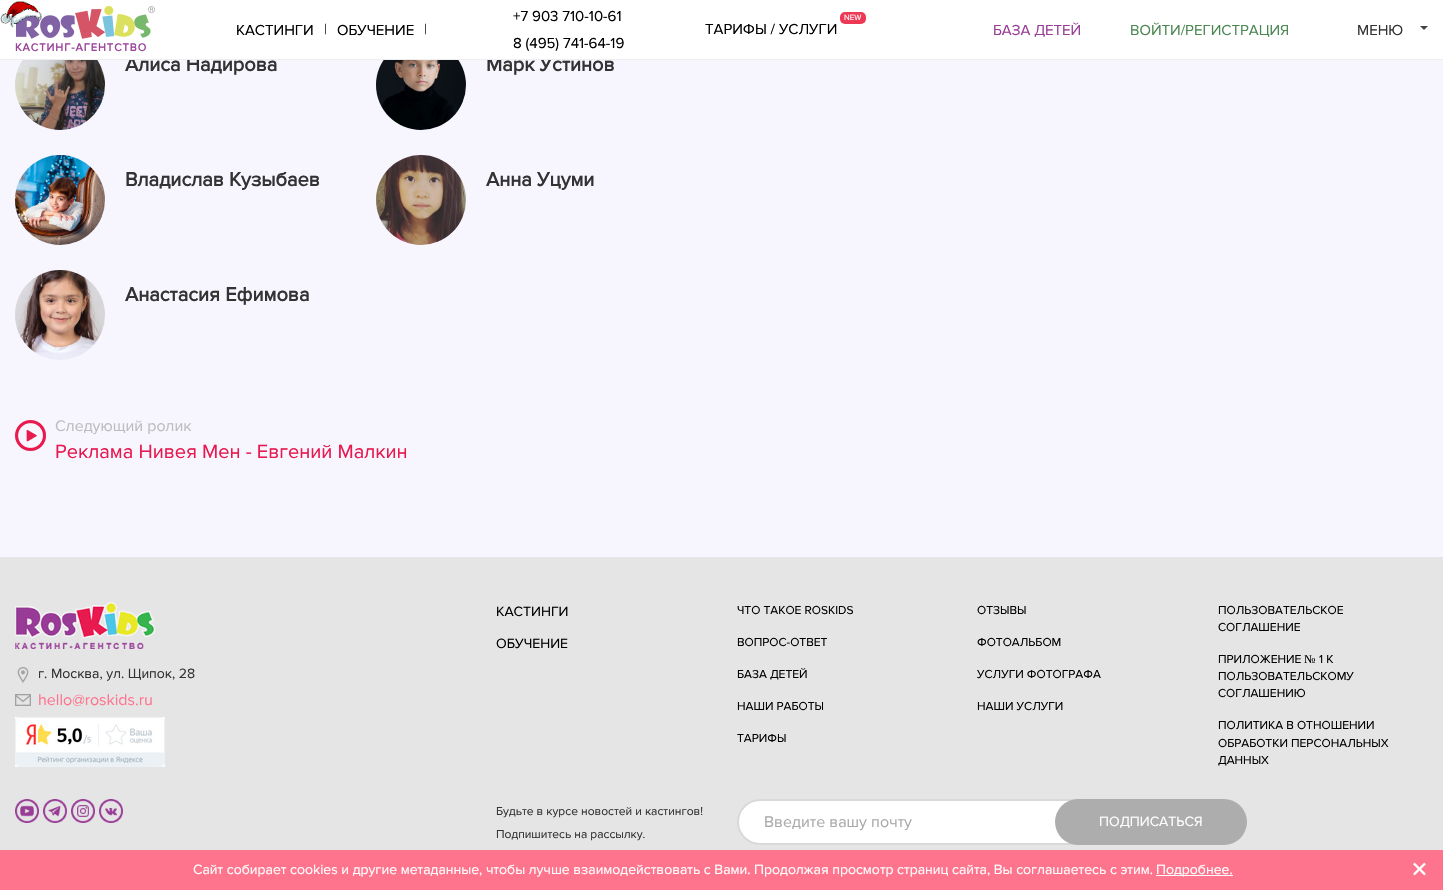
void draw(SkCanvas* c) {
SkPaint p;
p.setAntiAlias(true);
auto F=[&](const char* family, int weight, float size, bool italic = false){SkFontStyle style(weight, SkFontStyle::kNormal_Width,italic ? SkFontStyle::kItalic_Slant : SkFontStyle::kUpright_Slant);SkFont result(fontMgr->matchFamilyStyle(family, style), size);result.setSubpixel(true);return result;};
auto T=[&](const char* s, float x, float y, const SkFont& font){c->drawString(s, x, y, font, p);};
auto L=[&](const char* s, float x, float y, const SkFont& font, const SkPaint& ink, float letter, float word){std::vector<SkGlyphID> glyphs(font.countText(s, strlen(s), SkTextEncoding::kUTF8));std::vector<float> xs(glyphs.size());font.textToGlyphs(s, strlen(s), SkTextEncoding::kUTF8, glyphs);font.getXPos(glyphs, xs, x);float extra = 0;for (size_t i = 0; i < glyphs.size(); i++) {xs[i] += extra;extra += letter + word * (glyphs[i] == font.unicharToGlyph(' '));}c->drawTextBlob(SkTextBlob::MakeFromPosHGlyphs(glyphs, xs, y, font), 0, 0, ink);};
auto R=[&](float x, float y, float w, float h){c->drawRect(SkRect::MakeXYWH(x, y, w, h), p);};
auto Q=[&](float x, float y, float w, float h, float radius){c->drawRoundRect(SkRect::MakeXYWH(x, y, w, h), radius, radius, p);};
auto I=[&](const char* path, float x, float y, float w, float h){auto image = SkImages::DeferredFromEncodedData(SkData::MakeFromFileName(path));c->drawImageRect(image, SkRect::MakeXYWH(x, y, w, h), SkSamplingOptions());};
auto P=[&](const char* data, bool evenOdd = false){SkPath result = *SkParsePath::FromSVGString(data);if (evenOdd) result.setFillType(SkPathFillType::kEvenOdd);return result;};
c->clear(0xfff7f6ff);
auto f1 = F("Proxima Nova",700,20);
p.setColor(0xff333333);
T("Алиса Надирова",125,71,f1);
T("Марк Устинов",486,71,f1);
p.setColor(0xffffffff);
R(0,0,1443,59);
p.setColor(0xffeeeeee);
R(0,59,1443,1);
auto f2 = F("Proxima Nova",400,15);
p.setColor(0xff000000);
T("КАСТИНГИ",236,35,f2);
p.setColor(0xff333333);
T("|",324,34,f2);
p.setColor(0xff000000);
T("ОБУЧЕНИЕ",337,35,f2);
p.setColor(0xff333333);
T("|",424,34,f2);
p.setColor(0xff000000);
T("+7 903 710-10-61",513,21,f2);
T("8 (495) 741-64-19",513,48,f2);
p.setColor(0xffee3956);
Q(840,12,26,12,5);
auto f3 = F("Proxima Nova",400,8);
p.setColor(0xffffffff);
T("NEW",844,20,f3);
p.setColor(0xff000000);
T("ТАРИФЫ / УСЛУГИ",705,34,f2);
p.setColor(0xff983c96);
T("БАЗА ДЕТЕЙ",993,35,f2);
p.setColor(0xff4b8852);
T("ВОЙТИ/РЕГИСТРАЦИЯ",1130,35,f2);
p.setColor(0xff333333);
T("МЕНЮ",1357,35,f2);
p.setColor(0xff444444);
c->drawPath(P("M1420 26h8l-4 4z"),p);
I("2.png",15,5,140,34);
I("1.png",0,1,42,27);
auto f4 = F("Proxima Nova",700,11);
p.setColor(0xff9c449b);
L("КАСТИНГ-АГЕНТСТВО",15,51,f4,p,1,0);
I("3.png",15,60,90,70);
I("4.png",376,60,90,70);
I("5.png",15,155,90,90);
p.setColor(0xff333333);
T("Владислав Кузыбаев",125,186,f1);
I("6.png",376,155,90,90);
T("Анна Уцуми",486,186,f1);
I("7.png",15,270,90,90);
T("Анастасия Ефимова",125,301,f1);
I("8.png",15,420,31,31);
auto f5 = F("Proxima Nova",400,16);
p.setColor(0xffbdbdbd);
T("Следующий ролик",55,431,f5);
auto f6 = F("Proxima Nova",400,20);
p.setColor(0xffe8194e);
T("Реклама Нивея Мен - Евгений Малкин",55,458,f6);
p.setColor(0xffe5e5e5);
R(0,557,1443,293);
auto f7 = F("Proxima Nova",400,14);
p.setColor(0xff000000);
T("КАСТИНГИ",496,616,f7);
T("ОБУЧЕНИЕ",496,648,f7);
auto f8 = F("Proxima Nova",400,12);
T("ЧТО ТАКОЕ ROSKIDS",737,614,f8);
T("ВОПРОС-ОТВЕТ",737,646,f8);
T("БАЗА ДЕТЕЙ",737,678,f8);
T("НАШИ РАБОТЫ",737,710,f8);
T("ТАРИФЫ",737,742,f8);
T("ОТЗЫВЫ",977,614,f8);
T("ФОТОАЛЬБОМ",977,646,f8);
T("УСЛУГИ ФОТОГРАФА",977,678,f8);
T("НАШИ УСЛУГИ",977,710,f8);
T("ПОЛЬЗОВАТЕЛЬСКОЕ",1218,614,f8);
T("СОГЛАШЕНИЕ",1218,631,f8);
T("ПРИЛОЖЕНИЕ",1218,663,f8);
auto f9 = F("Liberation Serif",400,12);
T("№",1304,663,f9);
T("1 К",1319,663,f8);
T("ПОЛЬЗОВАТЕЛЬСКОМУ",1218,680,f8);
T("СОГЛАШЕНИЮ",1218,697,f8);
T("ПОЛИТИКА В ОТНОШЕНИИ",1218,729,f8);
T("ОБРАБОТКИ ПЕРСОНАЛЬНЫХ",1218,747,f8);
T("ДАННЫХ",1218,764,f8);
I("9.png",15,602,140,47);
I("10.png",17,667,12,16);
p.setColor(0xff333333);
T("г. Москва, ул. Щипок, 28",38,678,f7);
I("11.png",15,694,16,12);
p.setColor(0xffff748d);
T("hello@roskids.ru",38,705,f5);
I("12.png",15,717,150,50);
I("13.png",15,799,24,24);
I("14.png",43,799,24,24);
I("15.png",71,799,24,24);
I("16.png",99,799,24,24);
p.setColor(0xff333333);
T("Будьте в курсе новостей и кастингов!",496,815,f8);
T("Подпишитесь на рассылку.",496,838,f8);
p.setColor(0xffffffff);
c->drawPath(P("M760 800h435v44h-435c-12 0-22-10-22-22c0-12 10-22 22-22z"),p);
p.setStroke(true);
p.setStrokeWidth(2);
p.setColor(0xffd9d9d9);
c->drawPath(P("M760 800h435v44h-435c-12 0-22-10-22-22c0-12 10-22 22-22z"),p);
p.setStroke(false);
p.setColor(0xffaaaaaa);
T("Введите вашу почту",764,827,f5);
p.setColor(0xffadadad);
Q(1055,799,192,46,23);
p.setColor(0xffffffff);
T("ПОДПИСАТЬСЯ",1099,826,f7);
p.setColor(0xffff748d);
R(0,850,1443,40);
p.setColor(0xffffffff);
T("Сайт собирает cookies и другие метаданные, чтобы лучше взаимодействовать с Вами. Продолжая просмотр страниц сайта, Вы соглашаетесь с этим.",193,874,f7);
R(1156,875,77,1);
T("Подробнее.",1156,874,f7);
auto f10 = F("Liberation Serif",700,30);
T("×",1411,879,f10);
}
